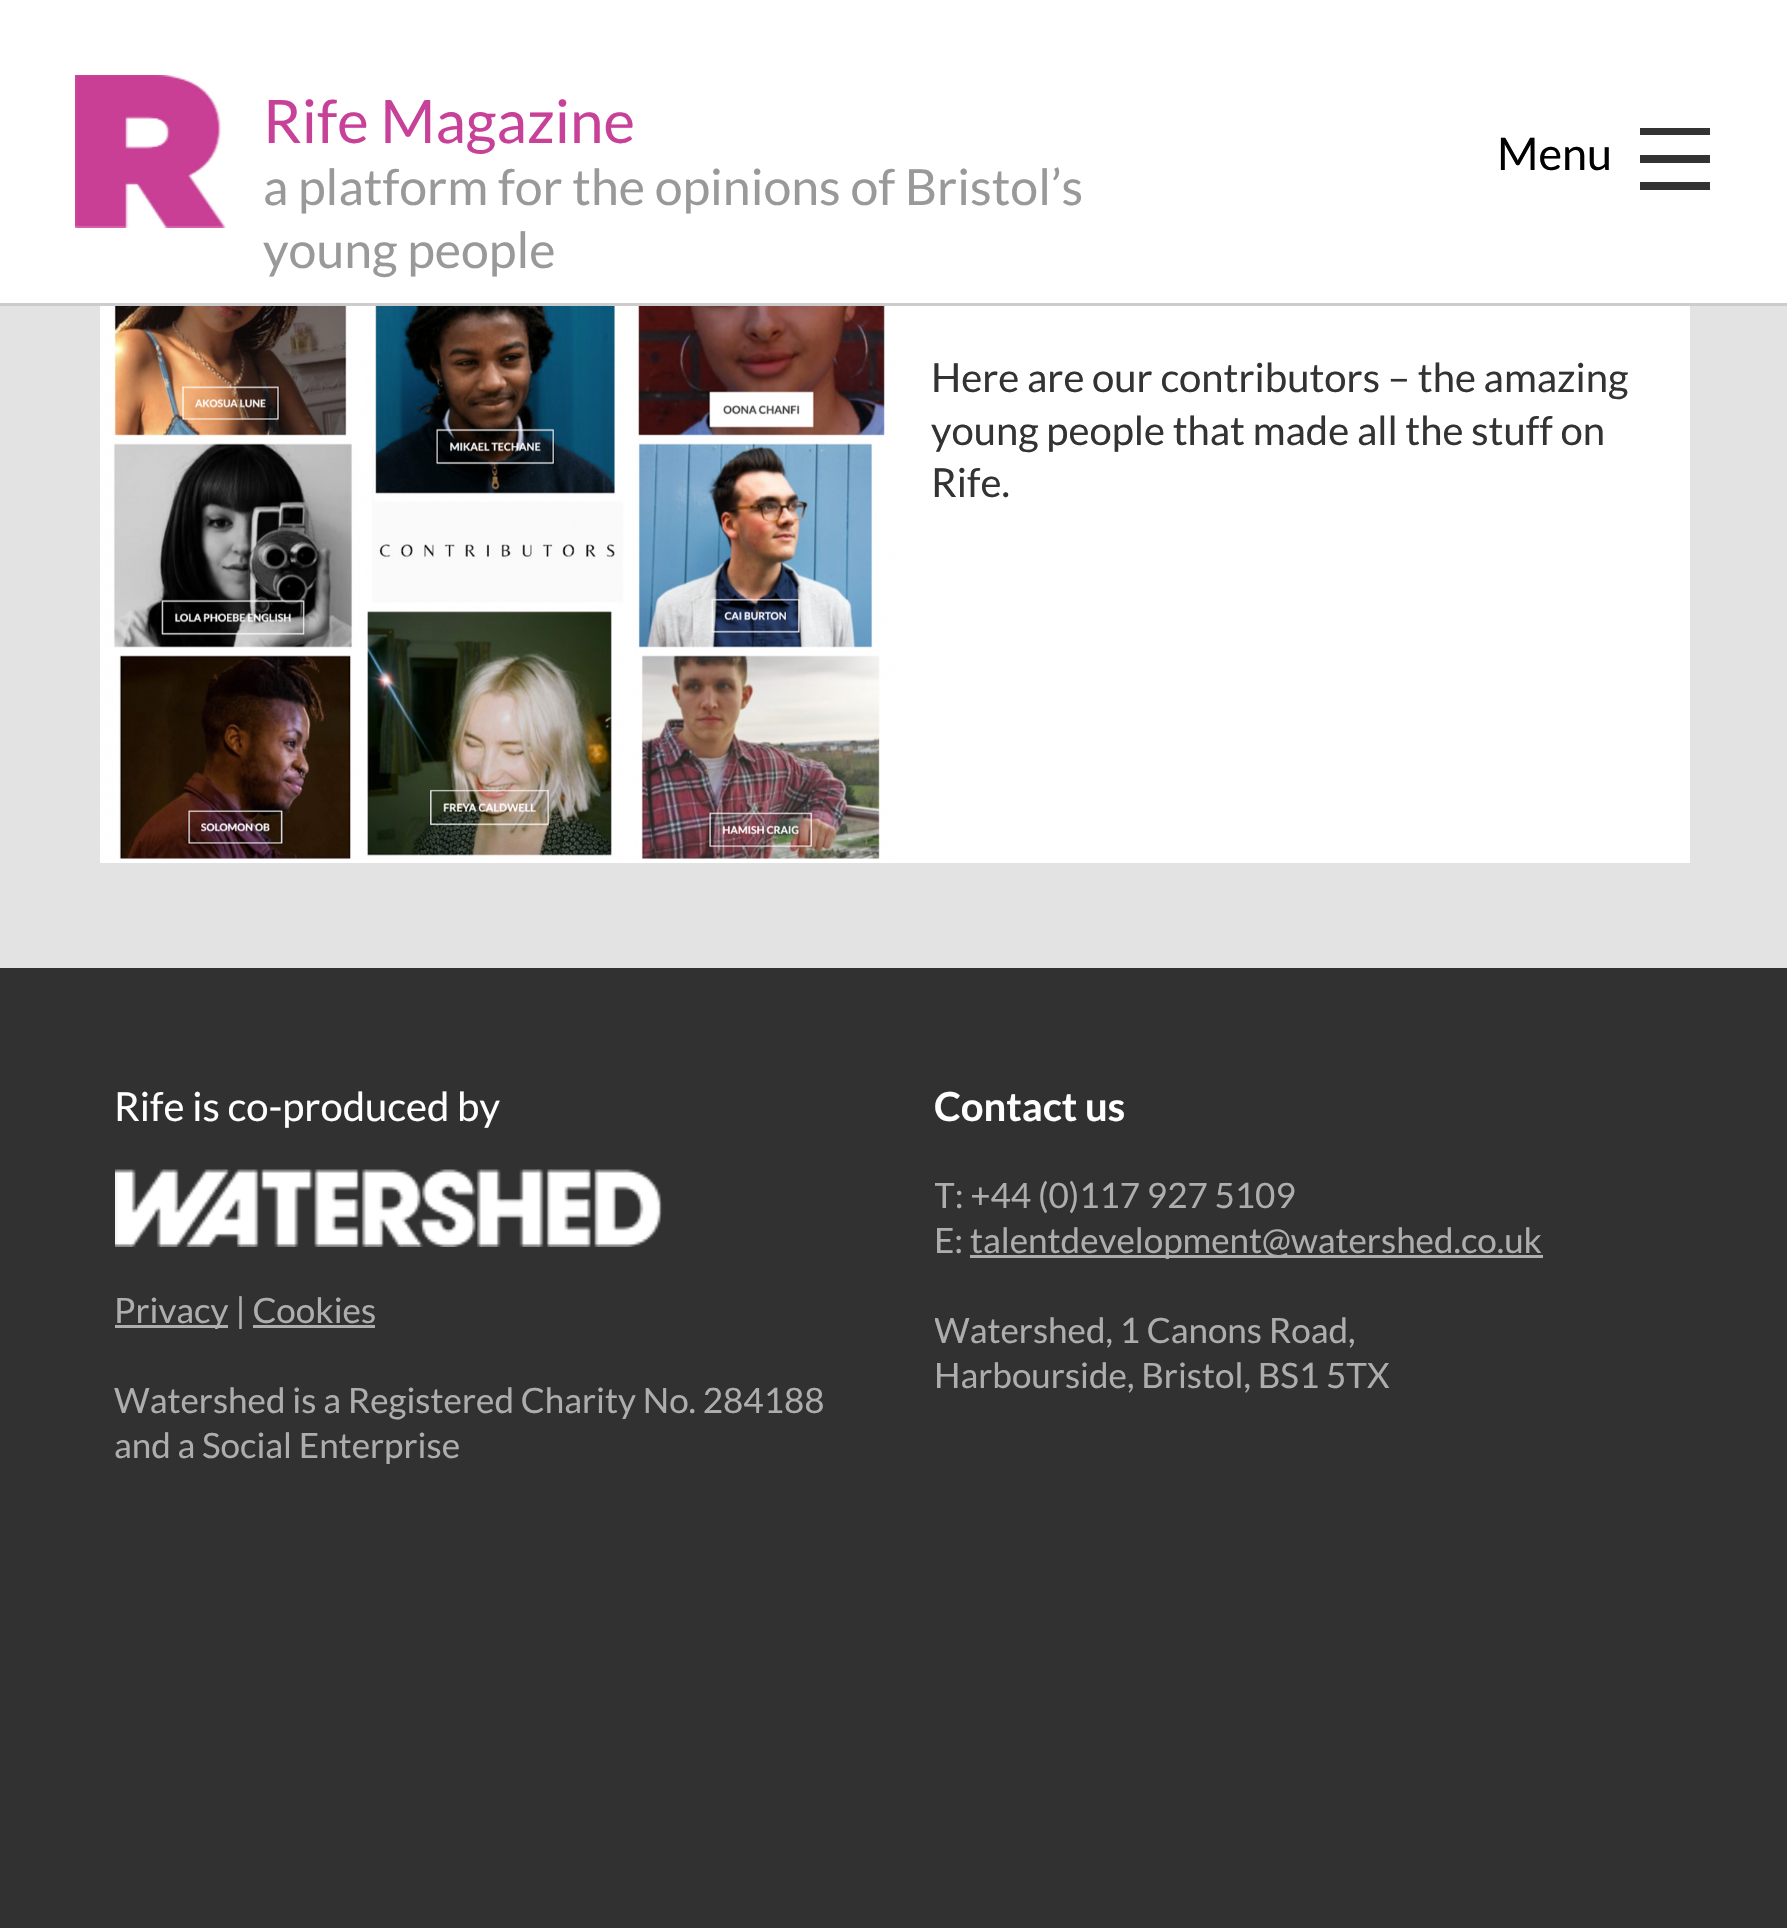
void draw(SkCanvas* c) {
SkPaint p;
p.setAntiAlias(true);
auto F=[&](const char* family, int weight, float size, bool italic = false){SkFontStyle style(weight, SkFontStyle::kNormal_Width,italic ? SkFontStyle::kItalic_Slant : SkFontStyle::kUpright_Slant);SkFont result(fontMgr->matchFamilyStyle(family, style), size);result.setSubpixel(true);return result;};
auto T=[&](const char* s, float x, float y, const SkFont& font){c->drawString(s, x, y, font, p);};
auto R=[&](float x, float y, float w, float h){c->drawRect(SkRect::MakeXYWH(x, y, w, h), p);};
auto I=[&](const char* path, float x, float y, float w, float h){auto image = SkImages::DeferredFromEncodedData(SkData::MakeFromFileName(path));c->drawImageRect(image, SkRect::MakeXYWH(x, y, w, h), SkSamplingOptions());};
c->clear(0xffe3e3e3);
p.setColor(0xffffffff);
R(0,0,1787,303);
p.setColor(0xffcccccc);
R(0,303,1787,3);
I("1.png",75,75,151,153);
auto f1 = F("Lato",400,60);
p.setColor(0xffc74198);
T("Rife Magazine",263,143,f1);
auto f2 = F("Lato",400,50);
p.setColor(0xff999999);
T("a platform for the opinions of Bristol’s",263,205,f2);
T("young people",263,268,f2);
p.setColor(0xff333333);
R(1640,128,70,7);
auto f3 = F("Lato",400,45);
p.setColor(0xff000000);
T("Menu",1497,170,f3);
p.setColor(0xff333333);
R(1640,155,70,8);
R(1640,182,70,8);
p.setColor(0xffffffff);
R(100,306,1590,557);
I("2.png",100,306,795,553);
auto f4 = F("Lato",400,40);
p.setColor(0xff333333);
T("Here are our contributors – the amazing",931,392,f4);
T("young people that made all the stuff on",931,445,f4);
T("Rife.",931,497,f4);
p.setColor(0xff313131);
R(0,968,1787,960);
p.setColor(0xffffffff);
T("Rife is co-produced by",114,1121,f4);
I("3.png",115,1169,548,78);
p.setColor(0xffadadad);
R(115,1325,113,3);
auto f5 = F("Lato",400,35);
T("Privacy | Cookies",114,1323,f5);
R(253,1325,122,3);
T("Watershed is a Registered Charity No. 284188",114,1413,f5);
T("and a Social Enterprise",114,1458,f5);
auto f6 = F("Lato",700,40);
p.setColor(0xffffffff);
T("Contact us",934,1121,f6);
c->save();
c->clipRect(SkRect::MakeXYWH(935,1083,740,450));
p.setColor(0xffadadad);
T("T: +44 (0)117 927 5109",934,1208,f5);
c->restore();
T("E:",934,1253,f5);
R(970,1255,573,3);
T("talentdevelopment@watershed.co.uk",970,1253,f5);
c->save();
c->clipRect(SkRect::MakeXYWH(935,1083,740,450));
T("Watershed, 1 Canons Road,",934,1343,f5);
c->restore();
T("Harbourside, Bristol, BS1 5TX",934,1388,f5);
}
